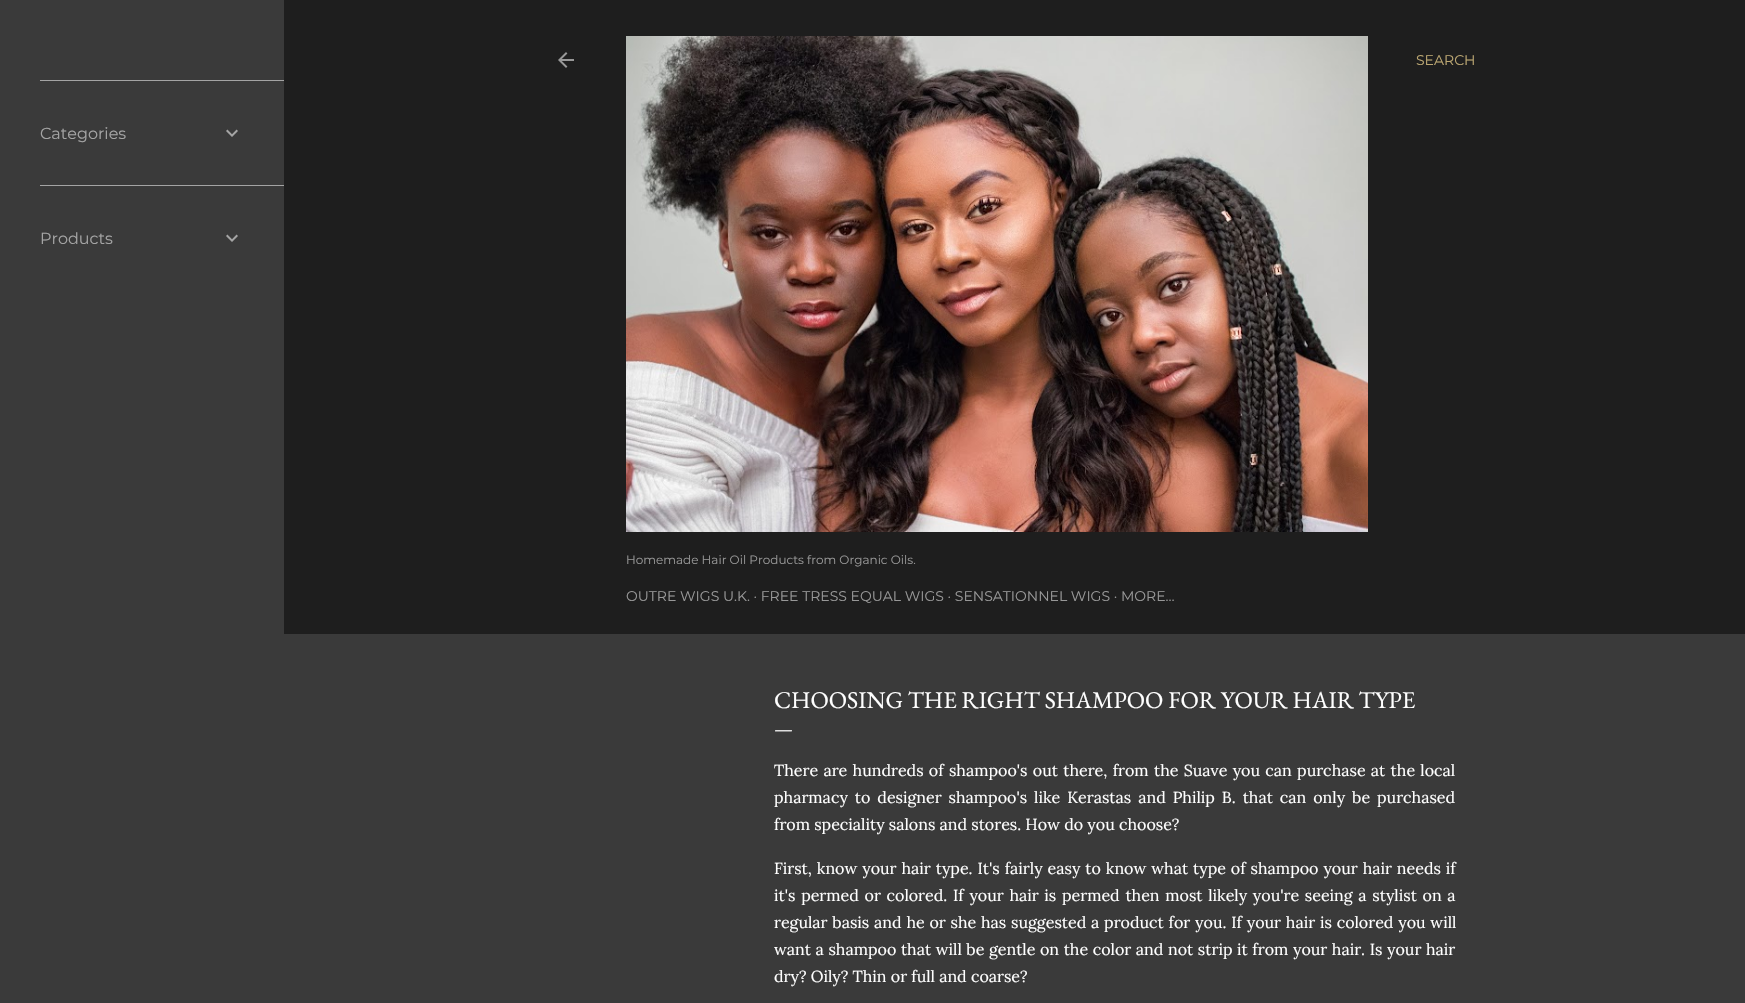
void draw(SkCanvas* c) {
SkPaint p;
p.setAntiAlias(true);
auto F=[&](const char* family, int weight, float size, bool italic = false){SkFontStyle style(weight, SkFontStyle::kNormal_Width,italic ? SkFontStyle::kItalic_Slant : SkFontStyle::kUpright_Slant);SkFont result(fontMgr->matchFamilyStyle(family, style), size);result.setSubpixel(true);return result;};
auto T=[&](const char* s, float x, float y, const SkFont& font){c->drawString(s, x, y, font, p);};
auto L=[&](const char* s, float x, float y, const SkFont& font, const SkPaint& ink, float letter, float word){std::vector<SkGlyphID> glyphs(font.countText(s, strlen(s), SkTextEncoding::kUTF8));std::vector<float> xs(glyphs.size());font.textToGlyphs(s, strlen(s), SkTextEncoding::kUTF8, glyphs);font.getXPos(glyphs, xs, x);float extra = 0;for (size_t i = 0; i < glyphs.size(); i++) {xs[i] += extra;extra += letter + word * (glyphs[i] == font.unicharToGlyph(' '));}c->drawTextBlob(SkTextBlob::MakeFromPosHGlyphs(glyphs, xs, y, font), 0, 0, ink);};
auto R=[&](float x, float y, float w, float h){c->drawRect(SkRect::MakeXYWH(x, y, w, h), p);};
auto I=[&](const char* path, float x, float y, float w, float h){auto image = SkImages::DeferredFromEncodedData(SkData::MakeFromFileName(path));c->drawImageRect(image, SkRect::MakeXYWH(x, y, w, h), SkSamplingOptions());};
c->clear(0xff3a3a3a);
p.setColor(0xffa4a4a4);
R(40,80,244,1);
auto f1 = F("Montserrat",400,16);
T("Categories",40,139,f1);
I("1.png",226,129,12,8);
R(40,185,244,1);
T("Products",40,244,f1);
I("1.png",226,234,12,8);
p.setColor(0xff1e1e1e);
R(284,0,1461,634);
I("2.png",558,52,16,16);
auto f2 = F("Montserrat",400,14);
p.setColor(0xffbca772);
T("SEARCH",1416,65,f2);
I("3.png",626,36,742,496);
auto f3 = F("Montserrat",400,12);
p.setColor(0xff989898);
T("Homemade Hair Oil Products from Organic Oils.",626,564,f3);
T("OUTRE WIGS U.K. · FREE TRESS EQUAL WIGS · SENSATIONNEL WIGS · MORE…",626,601,f2);
auto f4 = F("EB Garamond",400,24);
p.setColor(0xffffffff);
T("CHOOSING THE RIGHT SHAMPOO FOR YOUR HAIR TYPE",774,708,f4);
auto f5 = F("EB Garamond",400,20);
T("—",774,735,f5);
auto f6 = F("Lora",400,16);
L("There are hundreds of shampoo's out there, from the Suave you can purchase at the local",774,776,f6,p,0,1.1);
L("pharmacy to designer shampoo's like Kerastas and Philip B. that can only be purchased",774,803,f6,p,0,2.75);
T("from speciality salons and stores. How do you choose?",774,830,f6);
L("First, know your hair type. It's fairly easy to know what type of shampoo your hair needs if",774,874,f6,p,0,.75);
L("it's permed or colored. If your hair is permed then most likely you're seeing a stylist on a",774,901,f6,p,0,1.5);
L("regular basis and he or she has suggested a product for you. If your hair is colored you will",774,928,f6,p,0,.6);
L("want a shampoo that will be gentle on the color and not strip it from your hair. Is your hair",774,955,f6,p,0,.4);
T("dry? Oily? Thin or full and coarse?",774,982,f6);
}
